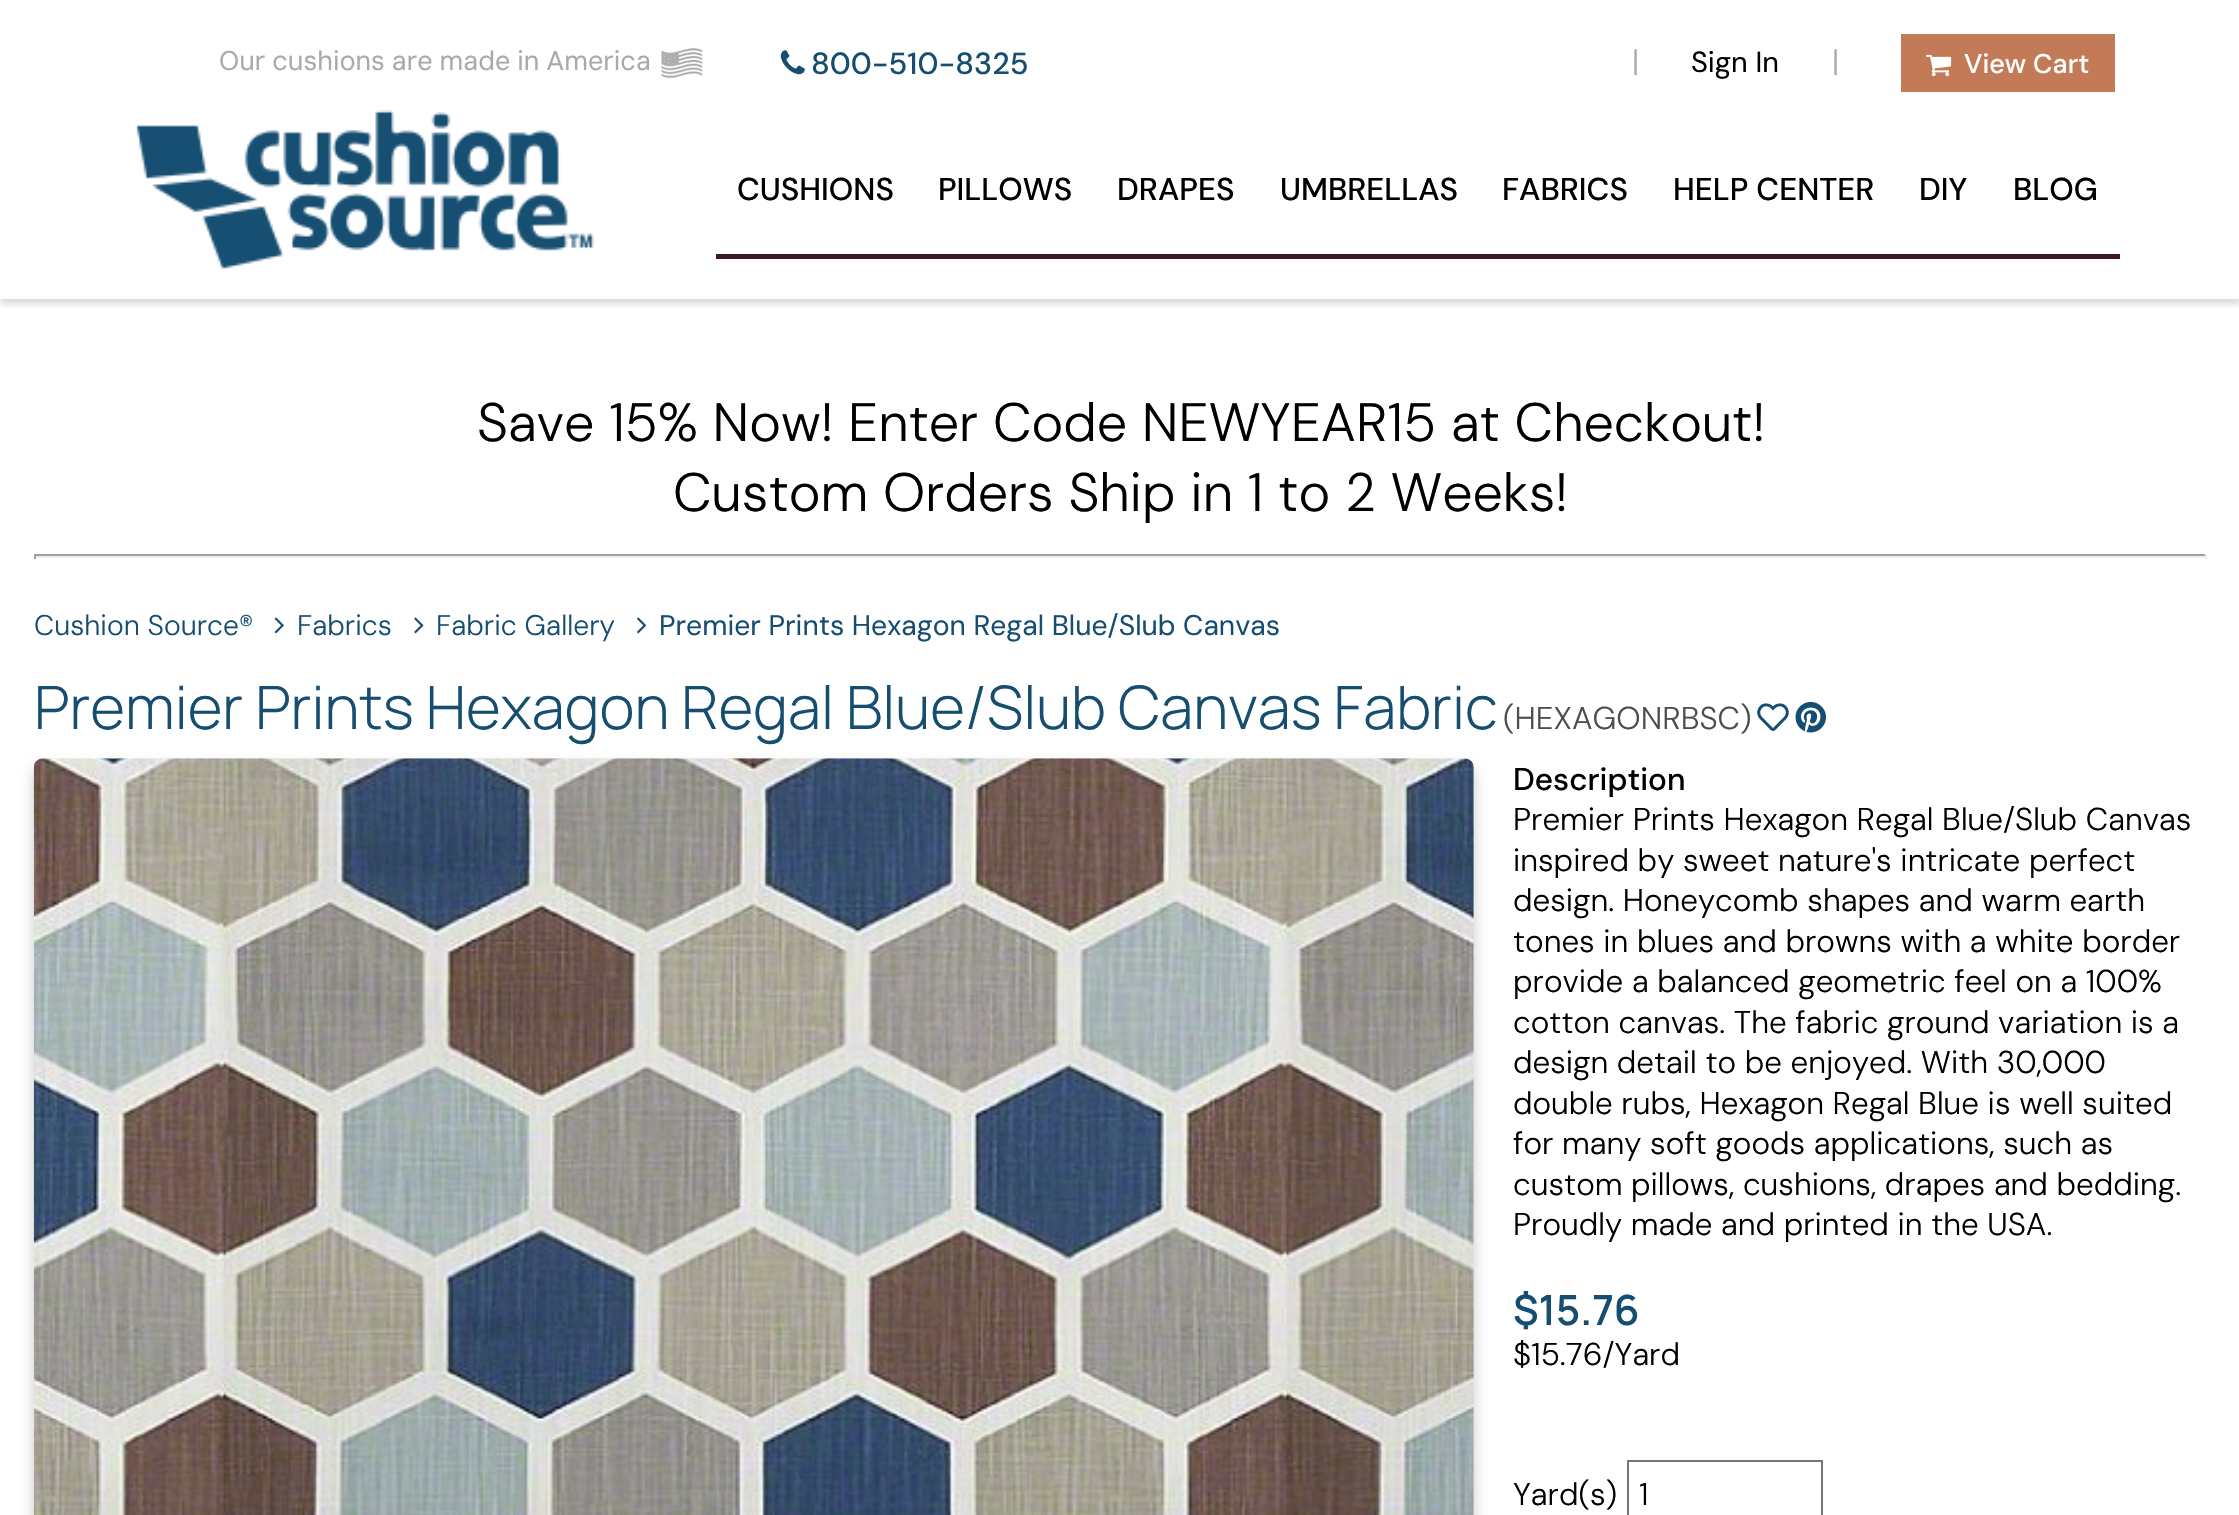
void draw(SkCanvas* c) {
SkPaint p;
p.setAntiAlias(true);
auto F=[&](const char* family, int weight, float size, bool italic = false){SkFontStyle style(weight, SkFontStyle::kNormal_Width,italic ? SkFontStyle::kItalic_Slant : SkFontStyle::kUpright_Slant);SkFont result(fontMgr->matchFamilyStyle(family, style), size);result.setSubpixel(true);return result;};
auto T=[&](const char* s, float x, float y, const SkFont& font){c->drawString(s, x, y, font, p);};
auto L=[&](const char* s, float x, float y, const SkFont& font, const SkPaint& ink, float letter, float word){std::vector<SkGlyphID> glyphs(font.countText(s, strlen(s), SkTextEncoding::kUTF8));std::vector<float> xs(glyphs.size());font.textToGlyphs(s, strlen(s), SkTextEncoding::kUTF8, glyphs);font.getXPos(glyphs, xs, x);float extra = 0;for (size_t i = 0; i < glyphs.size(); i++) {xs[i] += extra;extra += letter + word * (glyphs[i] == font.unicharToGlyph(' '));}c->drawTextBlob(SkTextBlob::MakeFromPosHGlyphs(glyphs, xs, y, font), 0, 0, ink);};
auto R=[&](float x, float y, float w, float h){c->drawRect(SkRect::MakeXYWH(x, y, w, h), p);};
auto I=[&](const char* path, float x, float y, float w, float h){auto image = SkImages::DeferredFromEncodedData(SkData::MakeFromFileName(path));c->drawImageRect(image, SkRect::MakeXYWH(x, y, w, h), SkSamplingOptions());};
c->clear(0xffffffff);
c->save();
c->clipRect(SkRect::MakeXYWH(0,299,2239,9));
p.setColor(0x26000000);
p.setMaskFilter(SkMaskFilter::MakeBlur(kNormal_SkBlurStyle, 3.5));
c->drawRect(SkRect::MakeXYWH(0,5,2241,299),p);
p.setMaskFilter(nullptr);
c->restore();
auto f1 = F("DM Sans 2",400,27);
p.setColor(0xffaaaaaa);
L("Our cushions are made in America",219,70,f1,p,0,-.25);
I("1.png",661,48,42,31);
I("2.png",780,50,25,25);
auto f2 = F("DM Sans 2",500,30.5);
p.setColor(0xff164e71);
T("800-510-8325",811,74,f2);
auto f3 = F("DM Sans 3",300,31.5);
p.setColor(0xffaaaaaa);
T("|",1632,72,f3);
auto f4 = F("DM Sans 3",400,29);
p.setColor(0xff000000);
T("Sign In",1691,72,f4);
p.setColor(0xffaaaaaa);
T("|",1832,72,f3);
p.setColor(0xffc27b56);
R(1901,34,214,58);
I("3.png",1926,54,26,23);
auto f5 = F("DM Sans 3",500,27);
p.setColor(0xffffffff);
T("View Cart",1964,73,f5);
I("4.png",136,110,459,160);
auto f6 = F("DM Sans",500,31.5);
p.setColor(0xff000000);
T("CUSHIONS",737,200,f6);
p.setColor(0xff401a21);
R(716,254,1404,5);
p.setColor(0xff000000);
T("PILLOWS",938,200,f6);
T("DRAPES",1117,200,f6);
T("UMBRELLAS",1280,200,f6);
T("FABRICS",1502,200,f6);
T("HELP CENTER",1673,200,f6);
T("DIY",1919,200,f6);
T("BLOG",2013,200,f6);
auto f7 = F("DM Sans",300,54);
T("Save 15% Now! Enter Code NEWYEAR15 at Checkout!",477,441,f7);
T("Custom Orders Ship in 1 to 2 Weeks!",673,511,f7);
p.setColor(0xff9f9f9f);
R(34,554,2173,2);
p.setColor(0xffeeeeee);
R(2205,554,2,5);
R(34,556,2173,2);
p.setColor(0xff9f9f9f);
R(34,554,2,5);
auto f8 = F("DM Sans 2",300,28.35);
p.setColor(0xff164e71);
T("Cushion Source®",34,635,f8);
I("5.png",274,617,10,17);
T("Fabrics",297,635,f8);
I("6.png",414,617,10,17);
T("Fabric Gallery",436,635,f8);
I("7.png",637,617,10,17);
auto f9 = F("DM Sans",400,28.35);
T("Premier Prints Hexagon Regal Blue/Slub Canvas",659,635,f9);
auto f10 = F("Manrope",300,59.85);
T("Premier Prints Hexagon Regal Blue/Slub Canvas Fabric",34,729,f10);
p.setColor(0xff4d4d4d);
T("(HEXAGONRBSC)",1503,729,f3);
I("8.png",1757,703,32,28);
I("9.png",1795,701,31,32);
p.setColor(0x33000000);
p.setMaskFilter(SkMaskFilter::MakeBlur(kNormal_SkBlurStyle, 7));
c->drawRoundRect(SkRect::MakeXYWH(34,767,1440,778),9,9,p);
p.setMaskFilter(nullptr);
I("10.png",33,758,1441,757);
p.setColor(0xff000000);
T("Description",1513,790,f6);
T("Premier Prints Hexagon Regal Blue/Slub Canvas",1513,830,f3);
T("inspired by sweet nature's intricate perfect",1513,871,f3);
T("design. Honeycomb shapes and warm earth",1513,911,f3);
T("tones in blues and browns with a white border",1513,952,f3);
T("provide a balanced geometric feel on a 100%",1513,992,f3);
T("cotton canvas. The fabric ground variation is a",1513,1033,f3);
T("design detail to be enjoyed. With 30,000",1513,1073,f3);
T("double rubs, Hexagon Regal Blue is well suited",1513,1114,f3);
T("for many soft goods applications, such as",1513,1154,f3);
T("custom pillows, cushions, drapes and bedding.",1513,1195,f3);
T("Proudly made and printed in the USA.",1513,1235,f3);
auto f11 = F("Manrope",600,41.5);
p.setColor(0xff164e71);
T("$15.76",1513,1325,f11);
p.setColor(0xff000000);
T("$15.76/Yard",1513,1365,f3);
T("Yard(s)",1513,1505,f3);
p.setStroke(true);
p.setStrokeWidth(2);
p.setColor(0xff767676);
c->drawRect(SkRect::MakeXYWH(1628,1461,194,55),p);
p.setStroke(false);
p.setColor(0xff000000);
T("1",1639,1505,f3);
}
